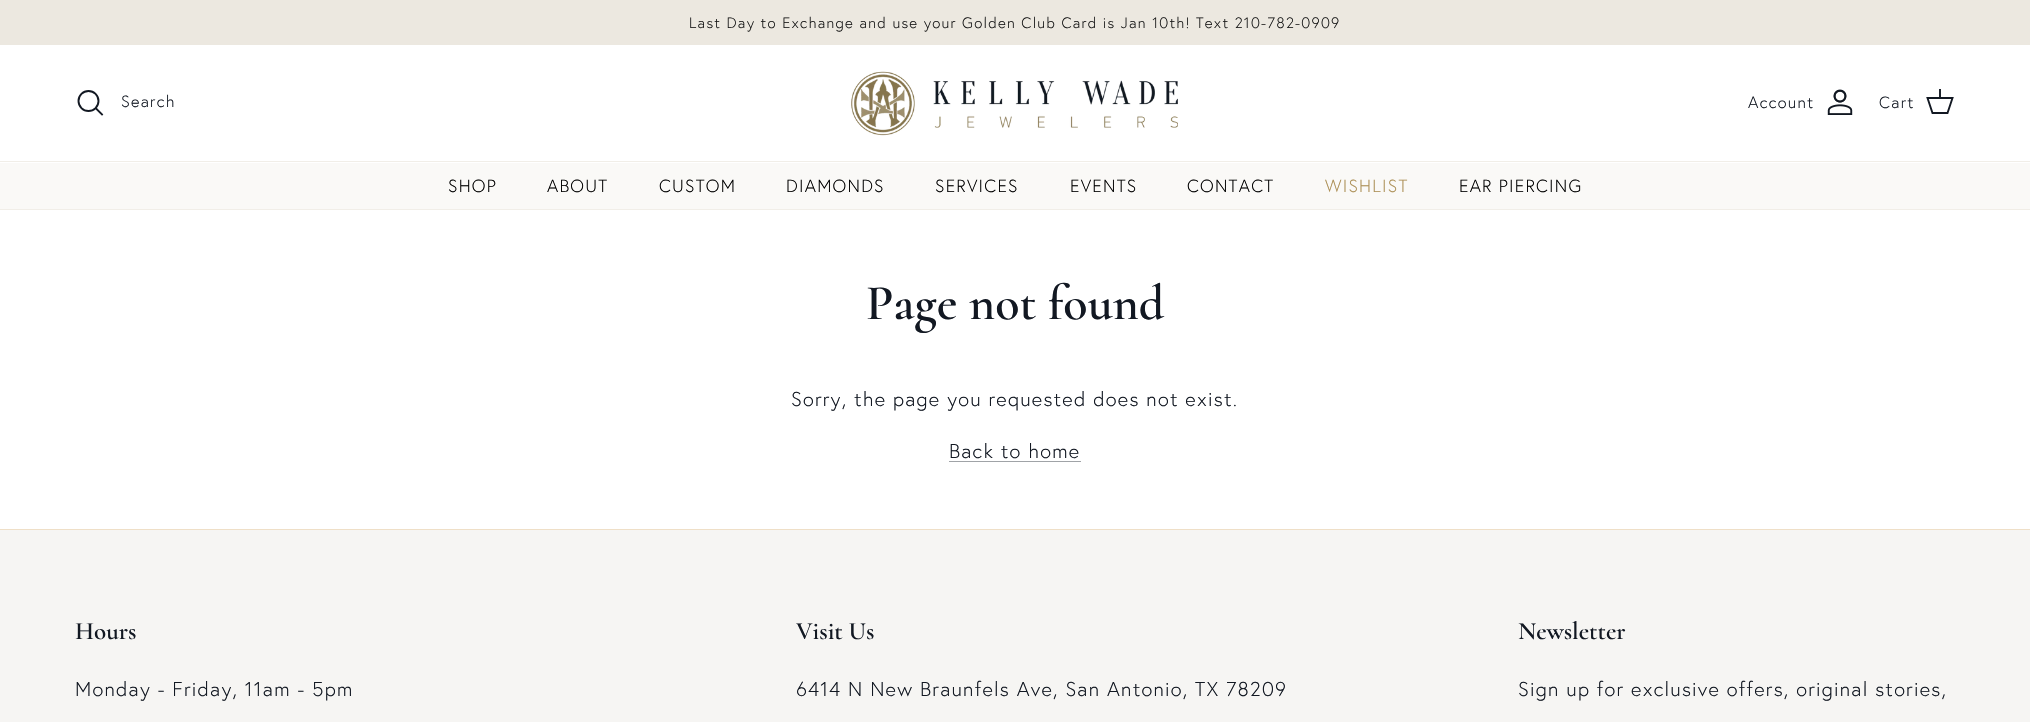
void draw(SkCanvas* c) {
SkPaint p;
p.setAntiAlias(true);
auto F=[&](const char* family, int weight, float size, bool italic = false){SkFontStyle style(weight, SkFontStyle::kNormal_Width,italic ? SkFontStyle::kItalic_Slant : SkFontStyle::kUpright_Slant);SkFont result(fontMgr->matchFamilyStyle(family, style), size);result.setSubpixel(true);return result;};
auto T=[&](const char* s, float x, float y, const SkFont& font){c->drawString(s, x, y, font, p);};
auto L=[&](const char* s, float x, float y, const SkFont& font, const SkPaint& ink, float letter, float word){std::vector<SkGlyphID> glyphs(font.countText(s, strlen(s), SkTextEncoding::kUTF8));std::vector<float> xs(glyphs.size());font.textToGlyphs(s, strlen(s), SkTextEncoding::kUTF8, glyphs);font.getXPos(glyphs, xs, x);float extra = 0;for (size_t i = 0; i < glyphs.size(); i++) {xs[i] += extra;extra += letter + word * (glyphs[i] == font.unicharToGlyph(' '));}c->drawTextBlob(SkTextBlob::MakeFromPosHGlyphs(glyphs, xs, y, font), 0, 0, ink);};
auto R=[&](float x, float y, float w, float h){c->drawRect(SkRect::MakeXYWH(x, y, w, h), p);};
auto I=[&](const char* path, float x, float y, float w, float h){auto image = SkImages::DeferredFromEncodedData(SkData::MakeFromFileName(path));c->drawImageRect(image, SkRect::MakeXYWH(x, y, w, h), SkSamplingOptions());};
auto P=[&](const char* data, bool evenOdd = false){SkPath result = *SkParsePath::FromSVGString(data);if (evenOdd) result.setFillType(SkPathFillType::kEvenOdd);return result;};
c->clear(0xffffffff);
p.setColor(0xffece8e0);
R(0,0,2030,45);
auto f1 = F("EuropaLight",300,15);
p.setColor(0xff171717);
L("Last Day to Exchange and use your Golden Club Card is Jan 10th! Text 210-782-0909",689,28,f1,p,1.25,0);
p.setColor(0xfff1eee8);
R(0,161,2030,1);
p.setStroke(true);
p.setStrokeWidth(1.9);
p.setColor(0xff121822);
c->drawCircle(88.5,101,10,p);
auto f2 = F("EuropaLight",300,16.25);
p.setStroke(false);
L("Search",121,107,f2,p,1.25,0);
p.setStroke(true);
p.setStrokeCap(SkPaint::kSquare_Cap);
c->drawPath(P("M96 108.5l6 6"),p);
I("1.png",851,71,327,65);
p.setStroke(false);
L("Account",1748,108,f2,p,1.25,0);
I("2.png",1827,89,26,26);
L("Cart",1879,108,f2,p,1.25,0);
p.setStroke(true);
p.setStrokeCap(SkPaint::kButt_Cap);
c->drawPath(P("M1927.5 98h25l-5 15h-15z"),p);
p.setStroke(false);
p.setColor(0xf2121822);
R(1939,89,2,9);
p.setColor(0xfff1eee8);
R(0,209,2030,1);
p.setColor(0xfffaf9f7);
R(0,163,2030,46);
auto f3 = F("EuropaLight",300,17.5);
p.setColor(0xff000000);
L("SHOP",448,192,f3,p,1.25,0);
L("ABOUT",547,192,f3,p,1.25,0);
L("CUSTOM",659,192,f3,p,1.25,0);
L("DIAMONDS",786,192,f3,p,1.25,0);
L("SERVICES",935,192,f3,p,1.25,0);
L("EVENTS",1070,192,f3,p,1.25,0);
L("CONTACT",1187,192,f3,p,1.25,0);
p.setColor(0xffac8f55);
L("WISHLIST",1325,192,f3,p,1.25,0);
p.setColor(0xff000000);
L("EAR PIERCING",1459,192,f3,p,1.25,0);
auto f4 = F("Cormorant",600,50);
p.setColor(0xff121822);
T("Page not found",866,319,f4);
auto f5 = F("EuropaLight",300,20);
L("Sorry, the page you requested does not exist.",791,406,f5,p,1.25,0);
L("Back to home",949,458,f5,p,1.25,0);
p.setColor(0xffa0a3a7);
R(949,461,132,1);
p.setColor(0xfff6f5f3);
R(0,530,2030,192);
p.setColor(0xffefdfc7);
R(0,529,2030,1);
auto f6 = F("Cormorant",600,25);
p.setColor(0xff121822);
T("Hours",75,639,f6);
L("Monday - Friday, 11am - 5pm",75,696,f5,p,1.25,0);
T("Visit Us",796,639,f6);
L("6414 N New Braunfels Ave, San Antonio, TX 78209",796,696,f5,p,1.25,0);
T("Newsletter",1518,639,f6);
L("Sign up for exclusive offers, original stories,",1518,696,f5,p,1.25,0);
}
